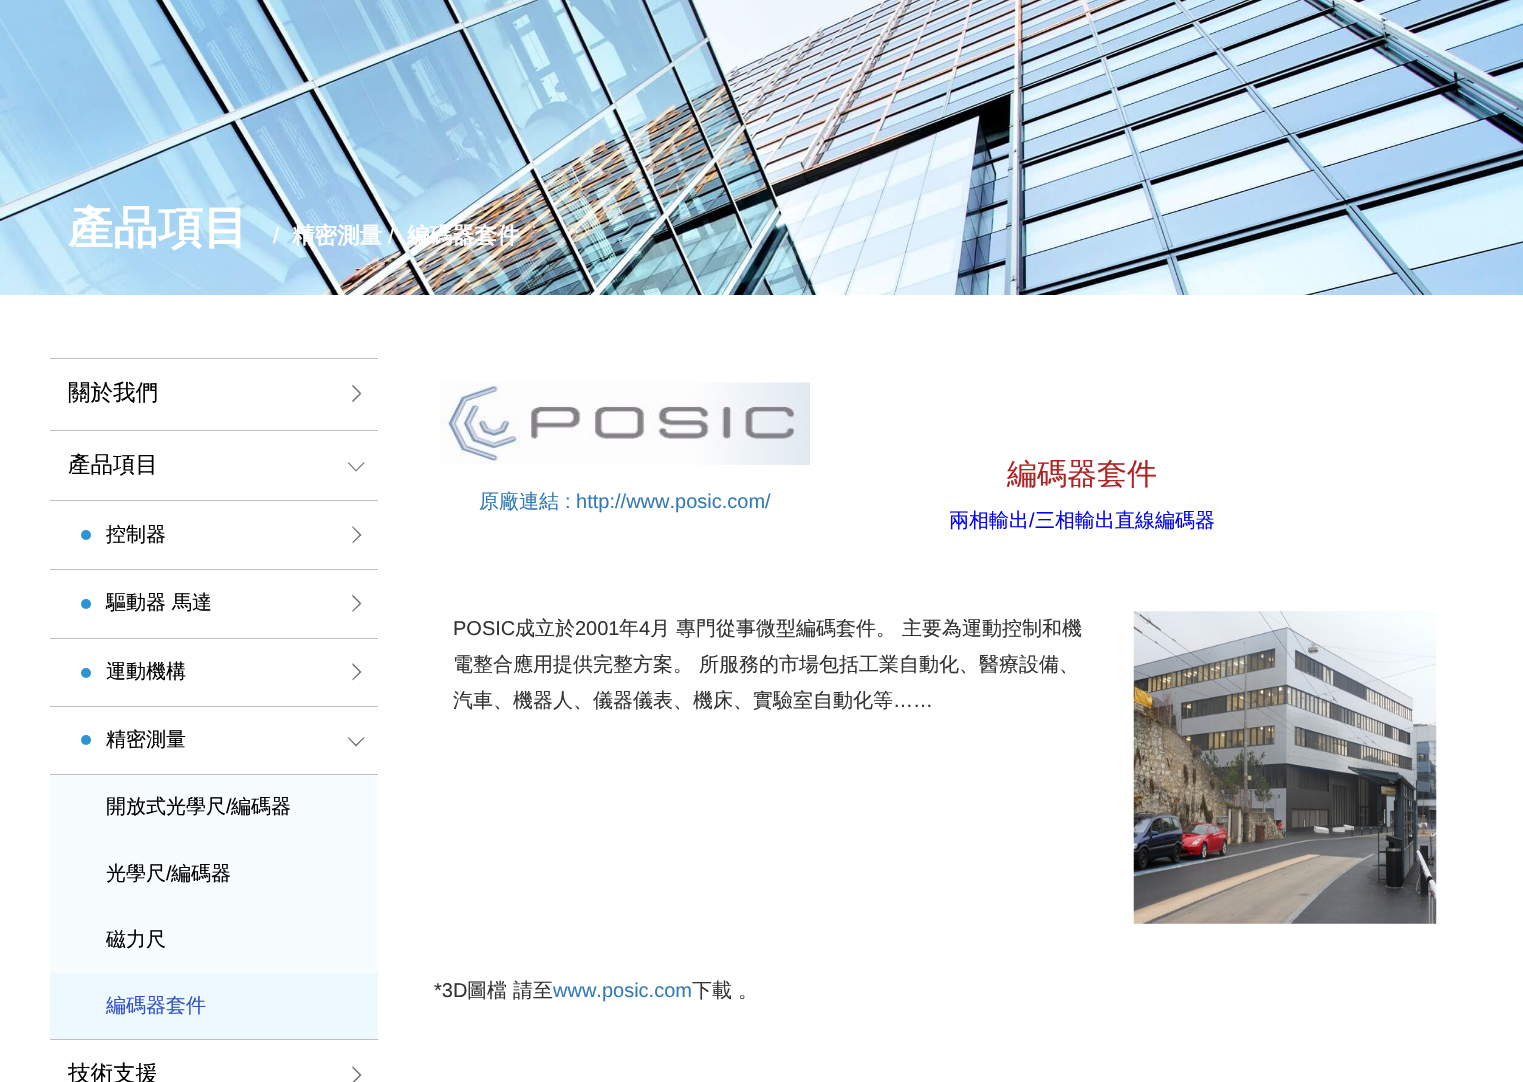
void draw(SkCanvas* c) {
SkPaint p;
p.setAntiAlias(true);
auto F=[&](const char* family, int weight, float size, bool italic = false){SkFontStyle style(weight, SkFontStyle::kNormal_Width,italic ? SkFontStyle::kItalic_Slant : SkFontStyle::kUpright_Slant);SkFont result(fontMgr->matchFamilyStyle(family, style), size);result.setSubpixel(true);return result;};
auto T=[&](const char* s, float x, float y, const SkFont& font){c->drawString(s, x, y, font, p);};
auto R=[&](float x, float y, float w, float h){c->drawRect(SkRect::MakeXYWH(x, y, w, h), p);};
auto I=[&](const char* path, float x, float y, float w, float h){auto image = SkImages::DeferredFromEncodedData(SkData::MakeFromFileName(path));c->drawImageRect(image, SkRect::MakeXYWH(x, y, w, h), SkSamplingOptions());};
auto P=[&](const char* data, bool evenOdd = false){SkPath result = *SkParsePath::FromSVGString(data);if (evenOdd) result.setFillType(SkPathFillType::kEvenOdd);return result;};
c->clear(0xffffffff);
I("1.png",0,0,1523,295);
auto f1 = F("WenQuanYi Zen Hei",700,45);
p.setColor(0xffffffff);
T("產品項目",68,243,f1);
auto f2 = F("Liberation Sans",400,22.5);
T("/",273,243,f2);
auto f3 = F("WenQuanYi Zen Hei",700,22.5);
T("精密測量",292,243,f3);
T("/",388,243,f2);
T("編碼器套件",407,243,f3);
p.setColor(0xffbfbfbf);
R(50,358,328,1);
auto f4 = F("WenQuanYi Zen Hei",500,22.5);
p.setColor(0xff000000);
T("關於我們",68,400,f4);
p.setColor(0xff6c6c6c);
c->drawPath(P("M352.5 384.5l9 9h-2l-7-7z"),p);
c->drawPath(P("M361.5 393.5l-9 9v-2l7-7z"),p);
p.setColor(0xffbfbfbf);
R(50,430,328,1);
R(50,500,328,1);
p.setColor(0xff000000);
T("產品項目",68,472,f4);
p.setColor(0xff6c6c6c);
c->drawPath(P("M365 462.5l-9 9v-1.5l7.5-7.5zm-9 9l-8.5-9h1.5l7 7.5z"),p);
p.setColor(0xff2c94d4);
c->drawCircle(86,535,5,p);
auto f5 = F("WenQuanYi Zen Hei",500,20);
p.setColor(0xff000000);
T("控制器",106,541,f5);
p.setColor(0xff6c6c6c);
c->drawPath(P("M352.5 526l9 9h-2l-7-7.5zm9 9l-9 8.5v-1.5l7-7z"),p);
p.setColor(0xffbfbfbf);
R(50,569,328,1);
p.setColor(0xff2c94d4);
c->drawCircle(86,604,5,p);
p.setColor(0xff000000);
T("驅動器 馬達",106,609,f5);
p.setColor(0xff6c6c6c);
c->drawPath(P("M352.5 594.5l9 9h-2l-7-7z"),p);
c->drawPath(P("M361.5 603.5l-9 8.5v-1.5l7-7z"),p);
p.setColor(0xffbfbfbf);
R(50,638,328,1);
p.setColor(0xff2c94d4);
c->drawCircle(86,673,5,p);
p.setColor(0xff000000);
T("運動機構",106,678,f5);
p.setColor(0xff6c6c6c);
c->drawPath(P("M352.5 663l9 9h-2l-7-7zm9 9l-9 8.5v-1.5l7-7z"),p);
p.setColor(0xffbfbfbf);
R(50,706,328,1);
R(50,774,328,1);
p.setColor(0xff2c94d4);
c->drawCircle(86,740,5,p);
p.setColor(0xff000000);
T("精密測量",106,746,f5);
p.setColor(0xff6c6c6c);
c->drawPath(P("M365 737.5l-9 9v-2l7.5-7zm-9 9l-8.5-9h1.5l7 7z"),p);
p.setColor(0xfff7fcff);
R(50,775,328,198);
p.setColor(0xff000000);
T("開放式光學尺",106,813,f5);
auto f6 = F("Liberation Sans",400,20);
T("/",226,813,f6);
T("編碼器",231,813,f5);
T("光學尺",106,880,f5);
T("/",166,880,f6);
T("編碼器",171,880,f5);
T("磁力尺",106,946,f5);
p.setColor(0xffedf8ff);
R(50,973,328,66);
p.setColor(0xff3252c3);
T("編碼器套件",106,1012,f5);
p.setColor(0xffbfbfbf);
R(50,1039,328,1);
p.setColor(0xff000000);
T("技術支援",68,1081,f4);
p.setColor(0xff6c6c6c);
c->drawPath(P("M352.5 1066l9 9h-2l-7-7zm9 9l-9 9v-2l7-7z"),p);
I("2.png",440,382,370,83);
p.setColor(0xff337ab7);
T("原廠連結",479,508,f5);
T(": http://www.posic.com/",565,508,f6);
auto f7 = F("WenQuanYi Zen Hei",500,30);
p.setColor(0xffb22222);
T("編碼器套件",1007,484,f7);
p.setColor(0xff0000ff);
T("兩相輸出",949,527,f5);
T("/",1029,527,f6);
T("三相輸出直線編碼器",1035,527,f5);
p.setColor(0xff333333);
T("POSIC",453,635,f6);
T("成立於",515,635,f5);
T("2001",575,635,f6);
T("年",619,635,f5);
T("4",639,635,f6);
T("月 專門從事微型編碼套件。 主要為運動控制和機",650,635,f5);
T("電整合應用提供完整方案。 所服務的市場包括工業自動化、醫療設備、",453,671,f5);
T("汽車、機器人、儀器儀表、機床、實驗室自動化等",453,707,f5);
T("……",893,707,f6);
I("3.png",1133,611,304,313);
T("*3D",434,997,f6);
T("圖檔 請至",467,997,f5);
p.setColor(0xff337ab7);
T("www.posic.com",553,997,f6);
p.setColor(0xff333333);
T("下載 。",692,997,f5);
}
